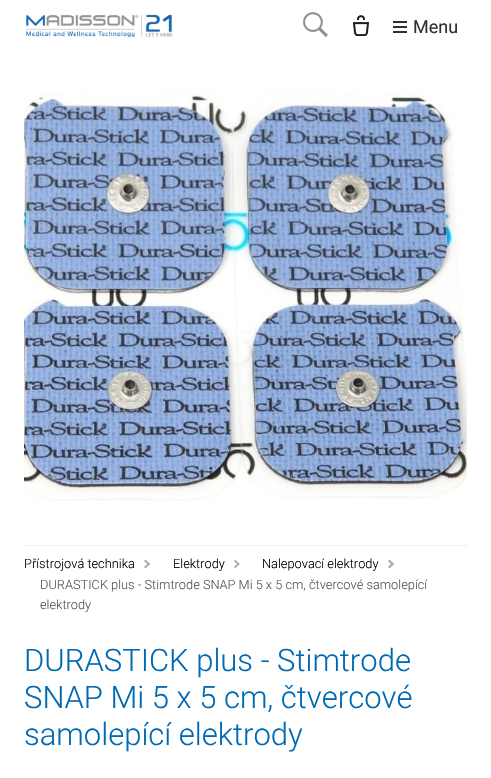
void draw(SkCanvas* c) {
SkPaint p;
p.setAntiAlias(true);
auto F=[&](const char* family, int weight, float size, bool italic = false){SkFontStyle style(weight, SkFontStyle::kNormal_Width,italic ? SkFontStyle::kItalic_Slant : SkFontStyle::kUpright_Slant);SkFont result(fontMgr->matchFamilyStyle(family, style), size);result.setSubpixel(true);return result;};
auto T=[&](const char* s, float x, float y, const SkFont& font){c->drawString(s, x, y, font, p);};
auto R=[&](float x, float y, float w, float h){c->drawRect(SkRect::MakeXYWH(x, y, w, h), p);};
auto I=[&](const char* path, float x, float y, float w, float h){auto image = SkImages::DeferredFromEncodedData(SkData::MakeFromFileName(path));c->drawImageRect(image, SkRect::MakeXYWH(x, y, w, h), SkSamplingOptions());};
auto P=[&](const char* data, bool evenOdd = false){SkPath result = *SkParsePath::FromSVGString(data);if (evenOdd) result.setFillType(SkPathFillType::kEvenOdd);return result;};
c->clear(0xffffffff);
I("1.png",26,14,147,24);
I("2.png",303,12,25,25);
I("3.png",352,15,18,21);
p.setColor(0xff303030);
R(393,26,14,2);
R(393,21,14,2);
R(393,31,14,2);
auto f1 = F("Roboto",400,18);
T("Menu",413,33,f1);
I("4.png",24,87,443,415);
p.setColor(0xfff0f0f0);
R(24,545,443,1);
auto f2 = F("Roboto",300,12.8);
p.setColor(0xff000000);
T("Přístrojová technika",24,568,f2);
p.setColor(0xffaaaaaa);
c->drawPath(P("M144 561l1.5-1.5l4.5 4.5l-1 1.5z"),p);
c->drawPath(P("M144 567l5-4.5l1 1.5l-4.5 4.5z"),p);
p.setColor(0xff000000);
T("Elektrody",173,568,f2);
p.setColor(0xffaaaaaa);
c->drawPath(P("M234 561l1-1.5l4.5 4.5l-1 1.5z"),p);
c->drawPath(P("M234 567l4.5-4.5l1 1.5l-4.5 4.5z"),p);
p.setColor(0xff000000);
T("Nalepovací elektrody",262,568,f2);
p.setColor(0xffaaaaaa);
c->drawPath(P("M388 561l1.5-1.5l4.5 4.5l-1.5 1.5z"),p);
c->drawPath(P("M388 567l4.5-4.5l1.5 1.5l-4.5 4.5z"),p);
p.setColor(0xff555555);
T("DURASTICK plus - Stimtrode SNAP Mi 5 x 5 cm, čtvercové samolepící",40,589,f2);
T("elektrody",40,609,f2);
auto f3 = F("Roboto",300,31);
p.setColor(0xff0069b4);
T("DURASTICK plus - Stimtrode",24,671,f3);
T("SNAP Mi 5 x 5 cm, čtvercové",24,708,f3);
T("samolepící elektrody",24,745,f3);
}
